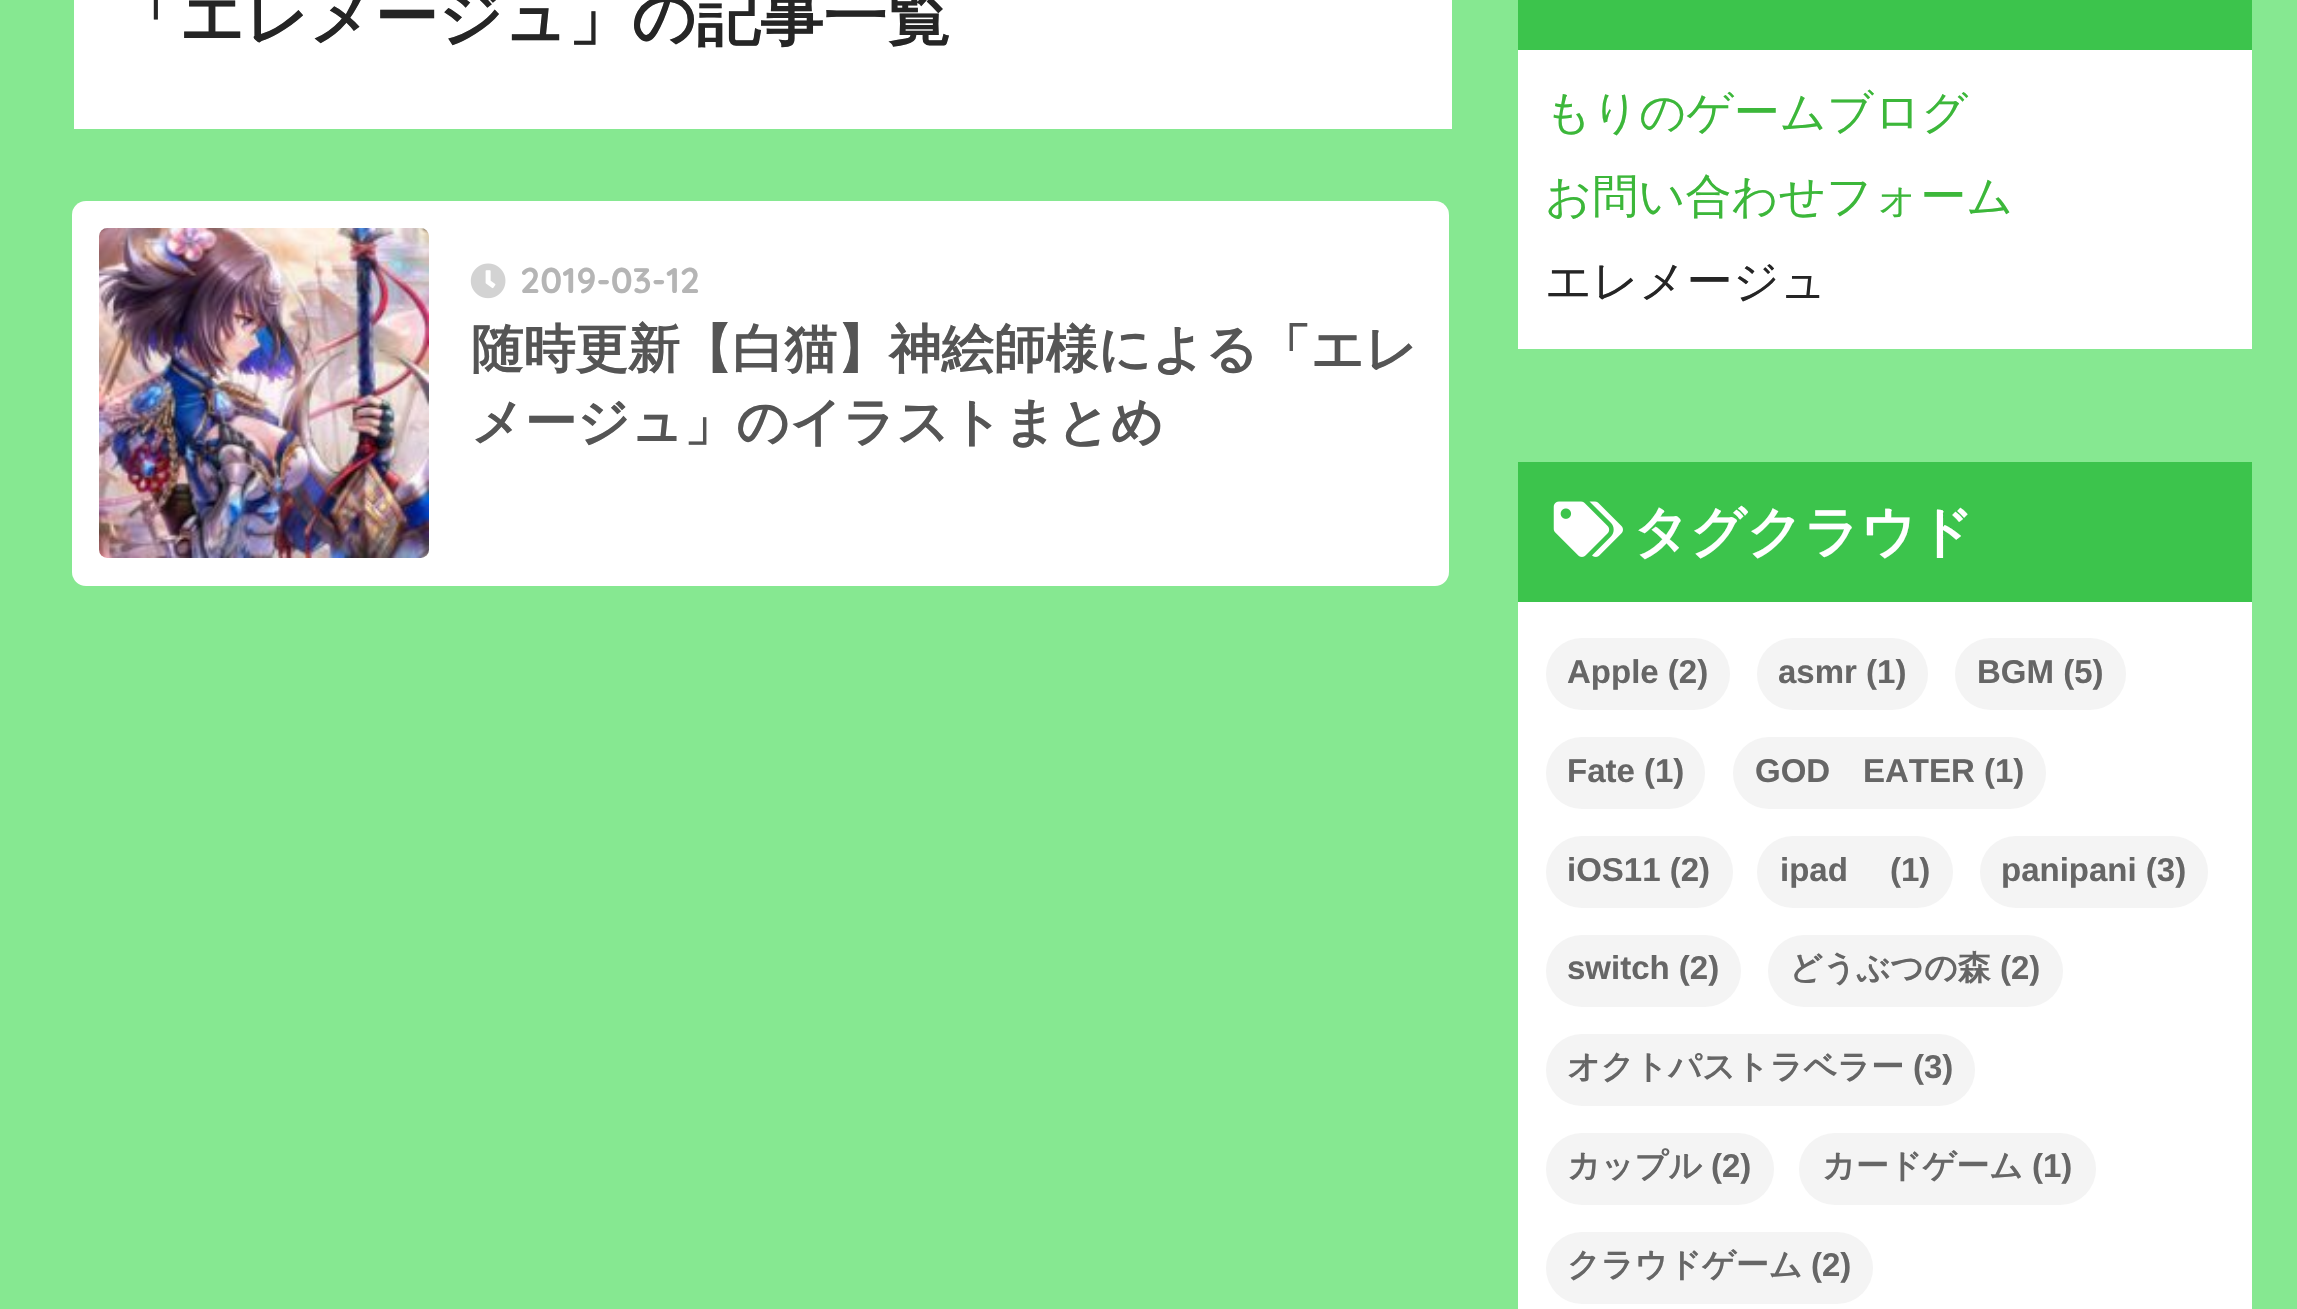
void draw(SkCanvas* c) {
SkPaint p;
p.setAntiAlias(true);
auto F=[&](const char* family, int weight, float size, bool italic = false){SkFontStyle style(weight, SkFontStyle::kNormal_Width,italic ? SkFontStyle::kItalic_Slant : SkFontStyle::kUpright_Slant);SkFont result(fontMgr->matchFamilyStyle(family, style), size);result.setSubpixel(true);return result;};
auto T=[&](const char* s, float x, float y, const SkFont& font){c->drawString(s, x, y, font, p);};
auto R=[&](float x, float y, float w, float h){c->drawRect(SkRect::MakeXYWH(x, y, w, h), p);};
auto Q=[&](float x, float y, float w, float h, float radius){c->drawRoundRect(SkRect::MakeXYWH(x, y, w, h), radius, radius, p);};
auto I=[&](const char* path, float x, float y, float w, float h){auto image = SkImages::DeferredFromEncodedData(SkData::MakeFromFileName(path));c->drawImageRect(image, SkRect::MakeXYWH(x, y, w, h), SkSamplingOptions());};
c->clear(0xff86e891);
p.setColor(0xffffffff);
R(74,0,1378,129);
auto f1 = F("WenQuanYi Zen Hei",700,63.5);
p.setColor(0xff252525);
T("「エレメージュ」の記事一覧",116,39,f1);
p.setColor(0xffffffff);
Q(72,201,1377,385,14);
I("1.png",99,228,330,330);
I("2.png",470,263,36,36);
auto f2 = F("Quicksand",700,35.75);
p.setColor(0xffb5b5b5);
T("2019-03-12",520,293,f2);
auto f3 = F("WenQuanYi Zen Hei",700,52.25);
p.setColor(0xff555555);
T("随時更新【白猫】神絵師様による「エレ",471,367,f3);
T("メージュ」のイラストまとめ",471,440,f3);
p.setColor(0xffffffff);
R(1518,50,734,299);
p.setColor(0xff3cc44c);
R(1518,0,734,50);
auto f4 = F("WenQuanYi Zen Hei",500,46.1);
p.setColor(0xff3cb73a);
T("もりのゲームブログ",1545,128,f4);
T("お問い合わせフォーム",1545,212,f4);
p.setColor(0xff252525);
T("エレメージュ",1545,297,f4);
p.setColor(0xffffffff);
R(1518,602,734,707);
p.setColor(0xff3cc44c);
R(1518,462,734,140);
I("3.png",1553,501,70,56);
auto f5 = F("WenQuanYi Zen Hei",700,55.5);
p.setColor(0xffffffff);
T("タグクラウド",1633,551,f5);
p.setColor(0xfff4f4f4);
Q(1546,638,184,72,36);
auto f6 = F("Liberation Sans",700,33);
p.setColor(0xff666666);
T("Apple (2)",1567,683,f6);
p.setColor(0xfff4f4f4);
Q(1757,638,171,72,36);
p.setColor(0xff666666);
T("asmr (1)",1778,683,f6);
p.setColor(0xfff4f4f4);
Q(1955,638,171,72,36);
p.setColor(0xff666666);
T("BGM (5)",1977,683,f6);
p.setColor(0xfff4f4f4);
Q(1546,737,159,72,36);
p.setColor(0xff666666);
T("Fate (1)",1567,782,f6);
p.setColor(0xfff4f4f4);
Q(1733,737,313,72,36);
p.setColor(0xff666666);
T("GOD",1755,782,f6);
T("EATER (1)",1863,782,f6);
p.setColor(0xfff4f4f4);
Q(1546,836,187,72,36);
p.setColor(0xff666666);
T("iOS11 (2)",1567,881,f6);
p.setColor(0xfff4f4f4);
Q(1757,836,196,72,36);
p.setColor(0xff666666);
T("ipad",1780,881,f6);
T("(1)",1890,881,f6);
p.setColor(0xfff4f4f4);
Q(1980,836,228,72,36);
p.setColor(0xff666666);
T("panipani (3)",2001,881,f6);
p.setColor(0xfff4f4f4);
Q(1546,935,195,72,36);
p.setColor(0xff666666);
T("switch (2)",1567,979,f6);
p.setColor(0xfff4f4f4);
Q(1768,935,295,72,36);
auto f7 = F("WenQuanYi Zen Hei",700,33);
p.setColor(0xff666666);
T("どうぶつの森",1789,979,f7);
T("(2)",2000,979,f6);
p.setColor(0xfff4f4f4);
Q(1546,1034,429,72,36);
p.setColor(0xff666666);
T("オクトパストラベラー",1567,1078,f7);
T("(3)",1913,1078,f6);
p.setColor(0xfff4f4f4);
Q(1546,1133,228,72,36);
p.setColor(0xff666666);
T("カップル",1567,1177,f7);
T("(2)",1711,1177,f6);
p.setColor(0xfff4f4f4);
Q(1799,1133,297,72,36);
p.setColor(0xff666666);
T("カードゲーム",1822,1177,f7);
T("(1)",2032,1177,f6);
p.setColor(0xfff4f4f4);
Q(1546,1232,327,72,36);
p.setColor(0xff666666);
T("クラウドゲーム",1567,1276,f7);
T("(2)",1811,1276,f6);
}
